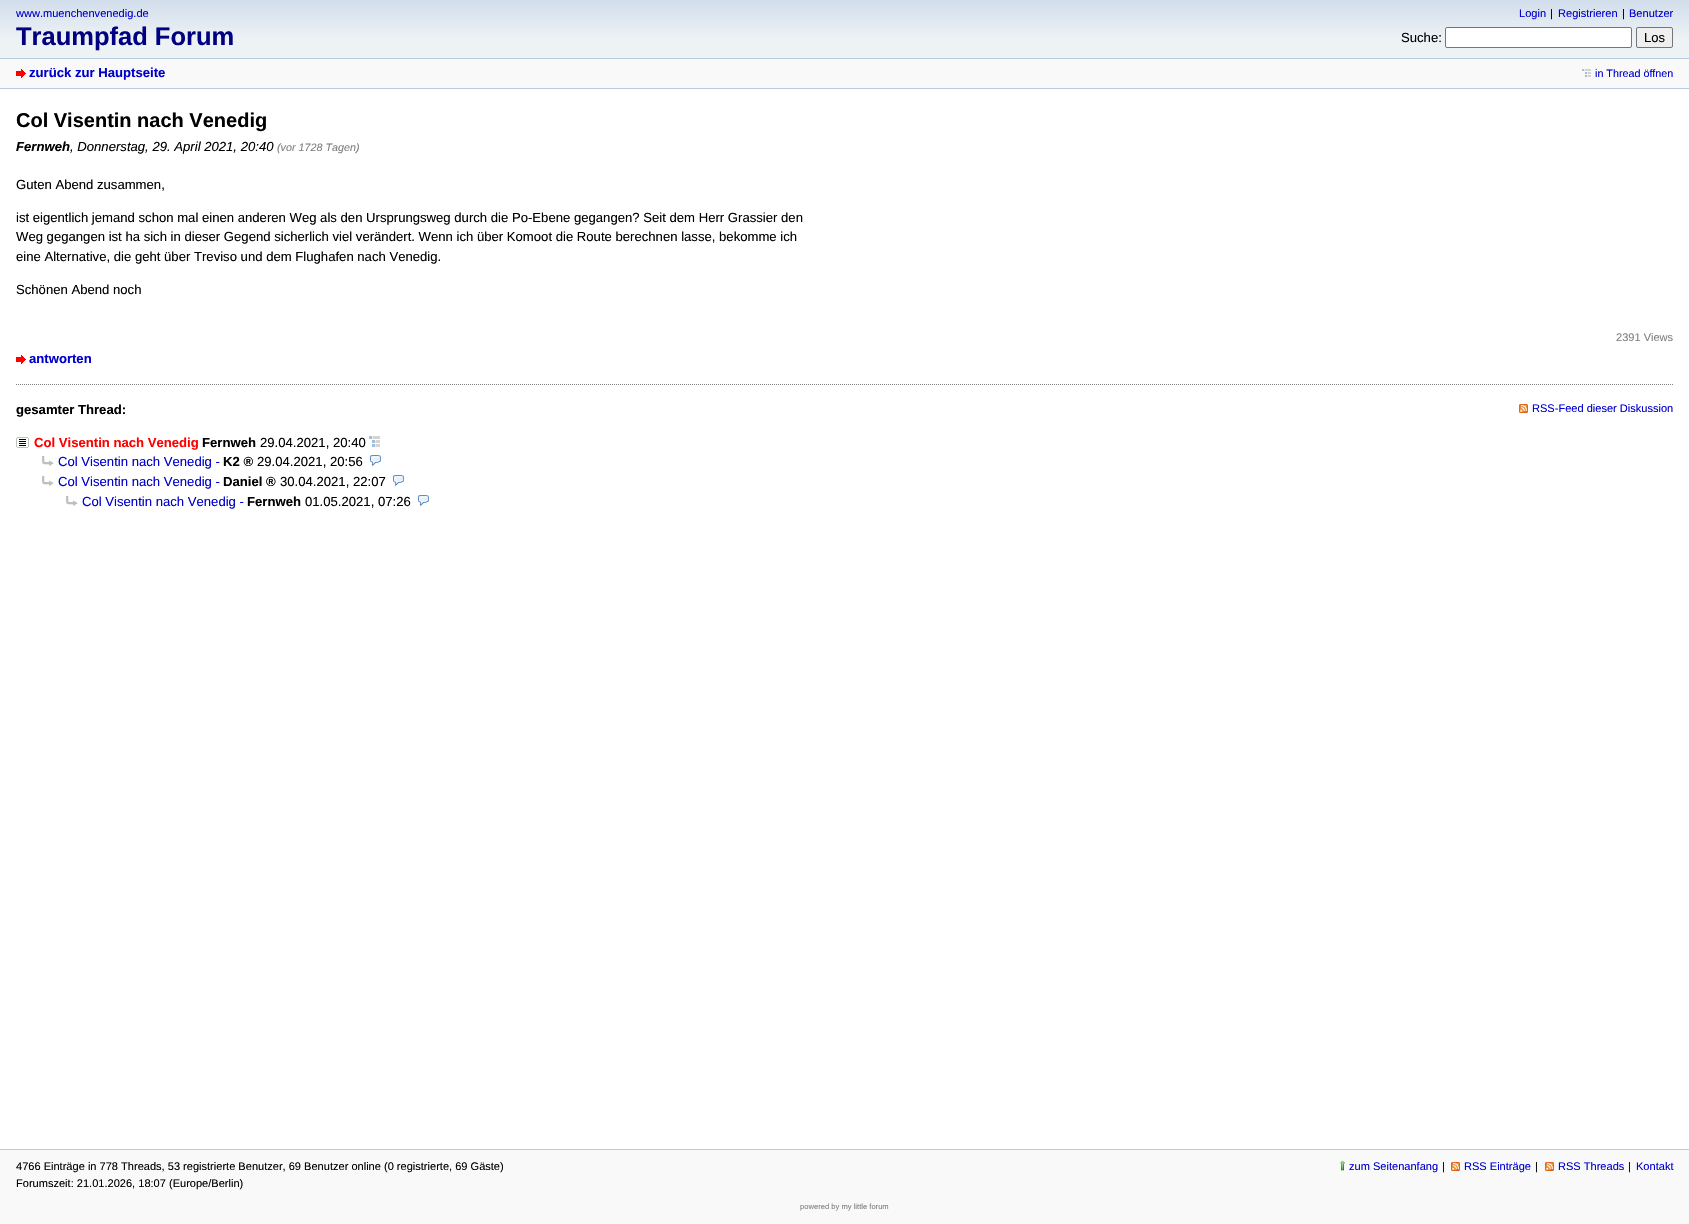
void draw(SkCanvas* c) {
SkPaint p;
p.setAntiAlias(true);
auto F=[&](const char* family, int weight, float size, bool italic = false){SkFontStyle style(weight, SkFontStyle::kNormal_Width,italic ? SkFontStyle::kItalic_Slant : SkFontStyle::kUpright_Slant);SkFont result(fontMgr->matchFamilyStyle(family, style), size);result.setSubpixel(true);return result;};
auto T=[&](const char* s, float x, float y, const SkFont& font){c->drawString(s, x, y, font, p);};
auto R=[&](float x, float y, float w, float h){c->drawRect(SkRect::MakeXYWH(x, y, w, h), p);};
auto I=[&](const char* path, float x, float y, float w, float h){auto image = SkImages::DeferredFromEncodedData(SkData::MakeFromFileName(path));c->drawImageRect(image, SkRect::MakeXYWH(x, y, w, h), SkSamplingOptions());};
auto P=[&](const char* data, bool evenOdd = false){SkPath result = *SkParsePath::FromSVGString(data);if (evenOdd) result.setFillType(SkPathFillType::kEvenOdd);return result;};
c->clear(0xfff9f9f9);
{
const SkColor colors[] = {0xffd2deec,0xffedf2f5,0xffedf2f5};
const float stops[] = {0,.69,1};
const SkPoint ends[] = {{845,0}, {845,58}};
p.setShader(SkGradientShader::MakeLinear(ends, colors, stops, 3, SkTileMode::kClamp));
p.setAlpha(255);
}
R(0,0,1689,58);
auto f1 = F("Liberation Sans",400,11.05);
p.setShader(nullptr);
p.setColor(0xff0000cc);
T("www.muenchenvenedig.de",16,17,f1);
auto f2 = F("Liberation Sans",700,25.5);
p.setColor(0xff000080);
T("Traumpfad Forum",16,45,f2);
p.setColor(0xff0000cc);
T("Login",1519,17,f1);
p.setColor(0xff000000);
T("|",1550,17,f1);
p.setColor(0xff0000cc);
T("Registrieren",1558,17,f1);
p.setColor(0xff000000);
T("|",1622,17,f1);
p.setColor(0xff0000cc);
T("Benutzer",1629,17,f1);
auto f3 = F("Liberation Sans",400,13.12);
p.setColor(0xff000000);
T("Suche:",1401,42,f3);
p.setColor(0xffffffff);
c->drawRoundRect(SkRect::MakeXYWH(1445.5,27.5,186,20),1.5,1.5,p);
p.setStroke(true);
p.setStrokeWidth(1);
p.setColor(0xff767676);
c->drawRoundRect(SkRect::MakeXYWH(1445.5,27.5,186,20),1.5,1.5,p);
p.setStroke(false);
p.setColor(0xffefefef);
c->drawRoundRect(SkRect::MakeXYWH(1636.5,27.5,36,20),1.5,1.5,p);
p.setStroke(true);
p.setColor(0xff767676);
c->drawRoundRect(SkRect::MakeXYWH(1636.5,27.5,36,20),1.5,1.5,p);
auto f4 = F("Liberation Sans",400,13);
p.setStroke(false);
p.setColor(0xff000000);
T("Los",1644,42,f4);
p.setColor(0xffbacbdf);
R(0,58,1689,1);
R(0,88,1689,1);
I("1.png",16,69,10,9);
auto f5 = F("Liberation Sans",700,13.12);
p.setColor(0xff0000cc);
T("zurück zur Hauptseite",29,77,f5);
I("2.png",1582,69,9,8);
auto f6 = F("Liberation Sans",400,10.75);
T("in Thread öffnen",1595,77,f6);
p.setColor(0xffffffff);
R(0,89,1689,1060);
auto f7 = F("Liberation Sans",700,20);
p.setColor(0xff000000);
T("Col Visentin nach Venedig",16,127,f7);
auto f8 = F("Liberation Sans",700,13.12,true);
T("Fernweh",16,151,f8);
auto f9 = F("Liberation Sans",400,13.12,true);
T(", Donnerstag, 29. April 2021, 20:40",70,151,f9);
auto f10 = F("Liberation Sans",400,10.75,true);
p.setColor(0xff808080);
T("(vor 1728 Tagen)",277,151,f10);
p.setColor(0xff000000);
T("Guten Abend zusammen,",16,189,f3);
T("ist eigentlich jemand schon mal einen anderen Weg als den Ursprungsweg durch die Po-Ebene gegangen? Seit dem Herr Grassier den",16,222,f3);
T("Weg gegangen ist ha sich in dieser Gegend sicherlich viel verändert. Wenn ich über Komoot die Route berechnen lasse, bekomme ich",16,241,f3);
T("eine Alternative, die geht über Treviso und dem Flughafen nach Venedig.",16,261,f3);
T("Schönen Abend noch",16,294,f3);
p.setColor(0xff808080);
T("2391 Views",1616,341,f1);
I("3.png",16,355,10,9);
p.setColor(0xff0000cc);
T("antworten",29,363,f5);
p.setStroke(true);
p.setColor(0xff808080);
p.setPathEffect(SkDashPathEffect::Make({{1,1}}, 0));
c->drawPath(P("M16 384.5h1657"),p);
p.setPathEffect(nullptr);
p.setStroke(false);
p.setColor(0xff000000);
T("gesamter Thread:",16,414,f5);
I("4.png",1519,404,9,9);
p.setColor(0xff0000cc);
T("RSS-Feed dieser Diskussion",1532,412,f1);
I("5.png",16,437,13,11);
p.setColor(0xffff0000);
T("Col Visentin nach Venedig",34,447,f5);
p.setColor(0xff000000);
T("Fernweh",202,447,f5);
T("29.04.2021, 20:40",260,447,f3);
I("6.png",369,436,11,11);
I("7.png",42,456,12,10);
p.setColor(0xff0000cc);
T("Col Visentin nach Venedig -",58,466,f3);
p.setColor(0xff000000);
T("K2 ®",223,466,f5);
T("29.04.2021, 20:56",257,466,f3);
I("8.png",370,455,11,11);
I("7.png",42,476,12,10);
p.setColor(0xff0000cc);
T("Col Visentin nach Venedig -",58,486,f3);
p.setColor(0xff000000);
T("Daniel ®",223,486,f5);
T("30.04.2021, 22:07",280,486,f3);
I("8.png",393,475,11,11);
I("7.png",66,496,12,10);
p.setColor(0xff0000cc);
T("Col Visentin nach Venedig -",82,506,f3);
p.setColor(0xff000000);
T("Fernweh",247,506,f5);
T("01.05.2021, 07:26",305,506,f3);
I("8.png",418,495,11,11);
p.setColor(0xffbacbdf);
R(0,1149,1689,1);
p.setColor(0xff000000);
T("4766 Einträge in 778 Threads, 53 registrierte Benutzer, 69 Benutzer online (0 registrierte, 69 Gäste)",16,1170,f1);
T("Forumszeit: 21.01.2026, 18:07 (Europe/Berlin)",16,1187,f1);
I("9.png",1339,1160,7,11);
p.setColor(0xff0000cc);
T("zum Seitenanfang",1349,1170,f1);
p.setColor(0xff000000);
T("|",1442,1170,f1);
I("4.png",1451,1162,9,9);
p.setColor(0xff0000cc);
T("RSS Einträge",1464,1170,f1);
p.setColor(0xff000000);
T("|",1535,1170,f1);
I("4.png",1545,1162,9,9);
p.setColor(0xff0000cc);
T("RSS Threads",1558,1170,f1);
p.setColor(0xff000000);
T("|",1628,1170,f1);
p.setColor(0xff0000cc);
T("Kontakt",1636,1170,f1);
auto f11 = F("Liberation Sans",400,7.6);
p.setColor(0xff808080);
T("powered by my little forum",800,1209,f11);
}
